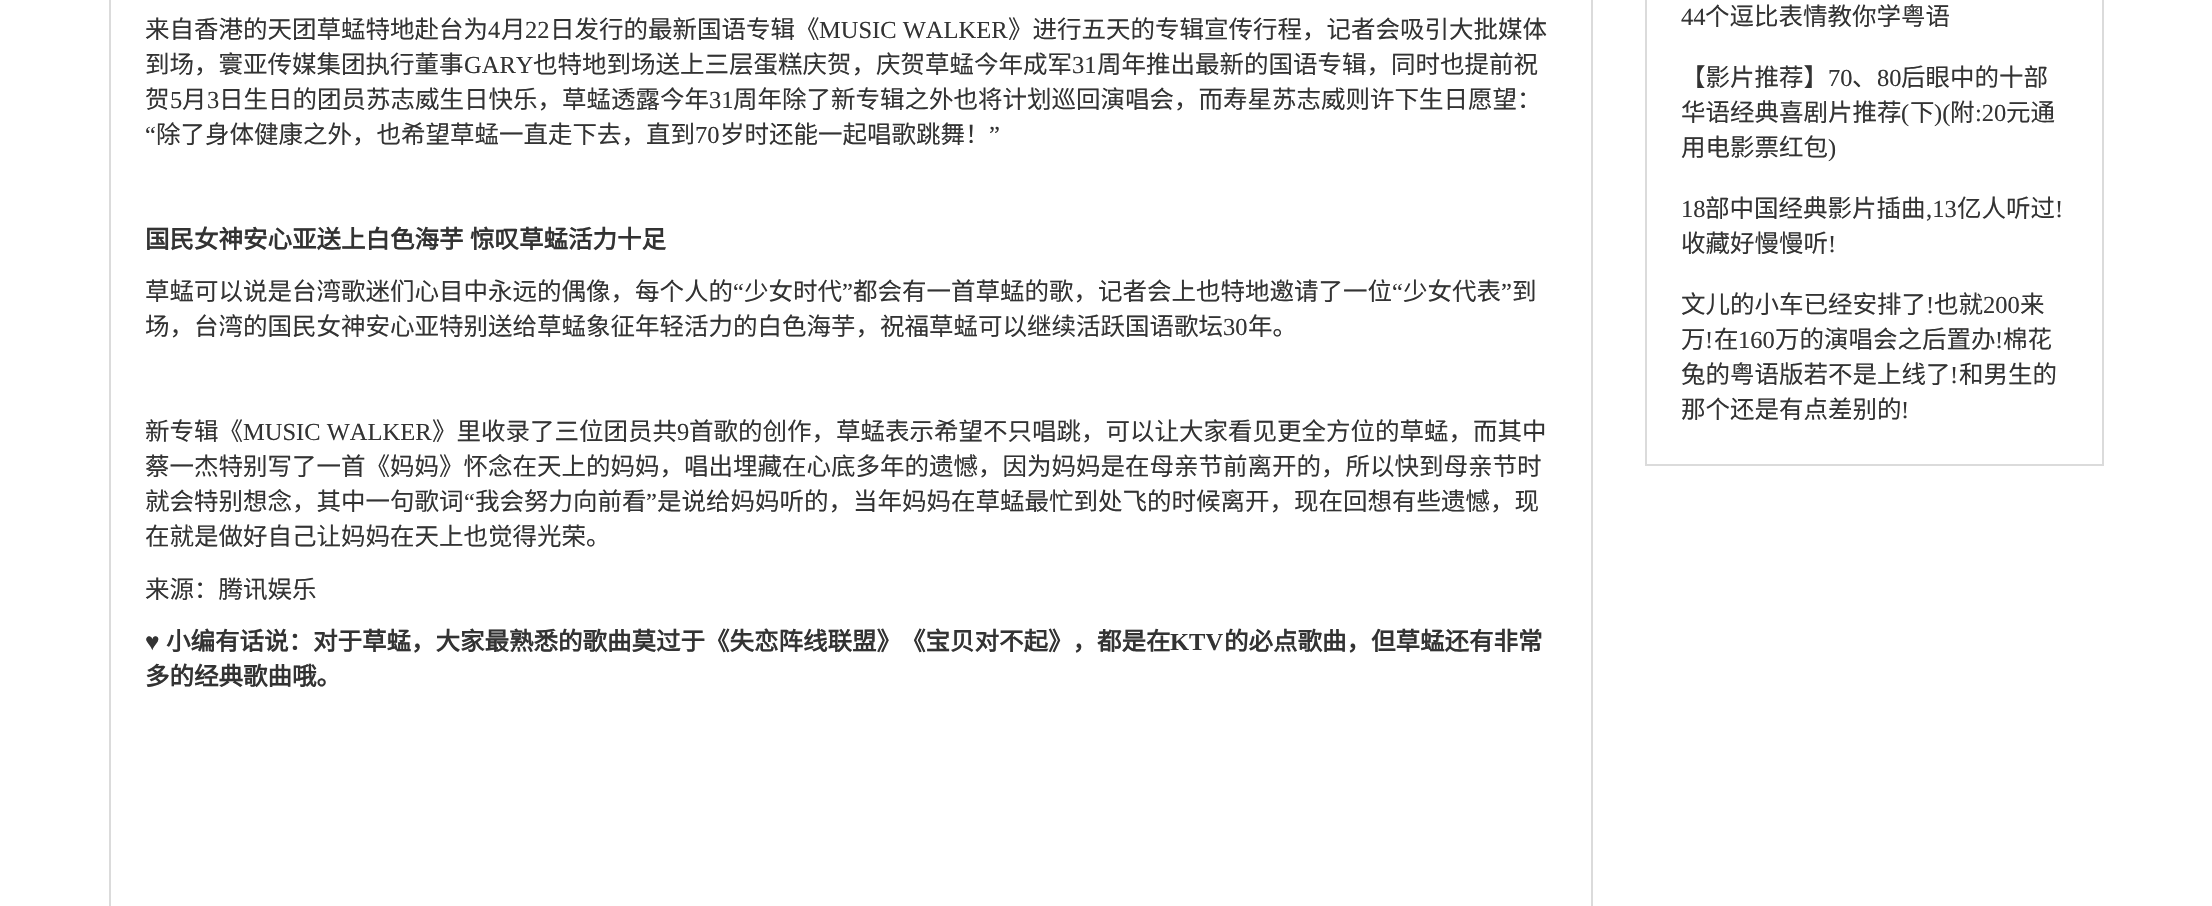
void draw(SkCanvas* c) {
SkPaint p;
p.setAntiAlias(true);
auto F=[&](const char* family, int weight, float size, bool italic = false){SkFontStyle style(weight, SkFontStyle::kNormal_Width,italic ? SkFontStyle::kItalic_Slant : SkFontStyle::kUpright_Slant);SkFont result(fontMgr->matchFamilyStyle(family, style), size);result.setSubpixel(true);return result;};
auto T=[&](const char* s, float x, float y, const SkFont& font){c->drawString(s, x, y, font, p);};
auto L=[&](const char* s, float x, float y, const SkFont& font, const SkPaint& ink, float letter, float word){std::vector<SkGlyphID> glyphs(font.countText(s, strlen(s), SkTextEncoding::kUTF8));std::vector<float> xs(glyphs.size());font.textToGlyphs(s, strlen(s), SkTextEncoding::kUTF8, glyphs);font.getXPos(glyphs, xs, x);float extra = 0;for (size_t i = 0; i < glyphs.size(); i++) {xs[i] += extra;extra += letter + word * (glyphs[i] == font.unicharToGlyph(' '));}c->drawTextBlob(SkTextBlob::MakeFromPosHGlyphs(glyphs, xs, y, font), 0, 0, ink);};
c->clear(0xffffffff);
p.setStroke(true);
p.setStrokeWidth(2);
p.setColor(0xffdbdbdb);
c->drawRect(SkRect::MakeXYWH(110,-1,1482,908),p);
auto f1 = F("Noto Sans CJK SC",400,24.5);
p.setStroke(false);
p.setColor(0xff333333);
T("来自香港的天团草蜢特地赴台为",145,38,f1);
auto f2 = F("Liberation Serif",400,24.5);
T("4",488,38,f2);
T("月",501,38,f1);
T("22",525,38,f2);
T("日发行的最新国语专辑《",550,38,f1);
T("MUSIC WALKER",819,38,f2);
T("》进行五天的专辑宣传行程，记者会吸引大批媒体",1008,38,f1);
T("到场，寰亚传媒集团执行董事",145,73,f1);
T("GARY",464,73,f2);
T("也特地到场送上三层蛋糕庆贺，庆贺草蜢今年成军",533,73,f1);
T("31",1072,73,f2);
T("周年推出最新的国语专辑，同时也提前祝",1097,73,f1);
T("贺",145,108,f1);
T("5",170,108,f2);
T("月",182,108,f1);
T("3",207,108,f2);
T("日生日的团员苏志威生日快乐，草蜢透露今年",219,108,f1);
T("31",709,108,f2);
T("周年除了新专辑之外也将计划巡回演唱会，而寿星苏志威则许下生日愿望：",733,108,f1);
T("“",145,143,f2);
T("除了身体健康之外，也希望草蜢一直走下去，直到",156,143,f1);
T("70",695,143,f2);
T("岁时还能一起唱歌跳舞！",720,143,f1);
T("”",989,143,f2);
auto f3 = F("Noto Sans CJK SC",700,24.5);
L("国民女神安心亚送上白色海芋 惊叹草蜢活力十足",145,248,f3,p,0,1);
T("草蜢可以说是台湾歌迷们心目中永远的偶像，每个人的",145,300,f1);
T("“",733,300,f2);
T("少女时代",744,300,f1);
T("”",842,300,f2);
T("都会有一首草蜢的歌，记者会上也特地邀请了一位",853,300,f1);
T("“",1392,300,f2);
T("少女代表",1403,300,f1);
T("”",1501,300,f2);
T("到",1512,300,f1);
T("场，台湾的国民女神安心亚特别送给草蜢象征年轻活力的白色海芋，祝福草蜢可以继续活跃国语歌坛",145,335,f1);
T("30",1223,335,f2);
T("年。",1248,335,f1);
T("新专辑《",145,440,f1);
T("MUSIC WALKER",243,440,f2);
T("》里收录了三位团员共",432,440,f1);
T("9",677,440,f2);
T("首歌的创作，草蜢表示希望不只唱跳，可以让大家看见更全方位的草蜢，而其中",689,440,f1);
T("蔡一杰特别写了一首《妈妈》怀念在天上的妈妈，唱出埋藏在心底多年的遗憾，因为妈妈是在母亲节前离开的，所以快到母亲节时",145,475,f1);
T("就会特别想念，其中一句歌词",145,510,f1);
T("“",464,510,f2);
T("我会努力向前看",475,510,f1);
T("”",646,510,f2);
T("是说给妈妈听的，当年妈妈在草蜢最忙到处飞的时候离开，现在回想有些遗憾，现",657,510,f1);
T("在就是做好自己让妈妈在天上也觉得光荣。",145,545,f1);
T("来源：腾讯娱乐",145,598,f1);
auto f4 = F("Liberation Serif",700,24.5);
T("♥",145,650,f4);
T("小编有话说：对于草蜢，大家最熟悉的歌曲莫过于《失恋阵线联盟》《宝贝对不起》，都是在",166,650,f3);
T("KTV",1170,650,f4);
T("的必点歌曲，但草蜢还有非常",1224,650,f3);
T("多的经典歌曲哦。",145,685,f3);
p.setStroke(true);
p.setColor(0xffdbdbdb);
c->drawRect(SkRect::MakeXYWH(1646,-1,457,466),p);
p.setStroke(false);
p.setColor(0xff333333);
T("44",1681,25,f2);
T("个逗比表情教你学粤语",1705,25,f1);
T("【影片推荐】",1681,86,f1);
T("70",1828,86,f2);
T("、",1852,86,f1);
T("80",1877,86,f2);
T("后眼中的十部",1901,86,f1);
T("华语经典喜剧片推荐",1681,121,f1);
T("(",1901,121,f2);
T("下",1910,121,f1);
T(")(",1934,121,f2);
T("附",1950,121,f1);
T(":20",1975,121,f2);
T("元通",2006,121,f1);
T("用电影票红包",1681,156,f1);
T(")",1828,156,f2);
T("18",1681,217,f2);
T("部中国经典影片插曲",1705,217,f1);
T(",13",1926,217,f2);
T("亿人听过",1957,217,f1);
T("!",2055,217,f2);
T("收藏好慢慢听",1681,252,f1);
T("!",1828,252,f2);
T("文儿的小车已经安排了",1681,313,f1);
T("!",1926,313,f2);
T("也就",1934,313,f1);
T("200",1983,313,f2);
T("来",2020,313,f1);
T("万",1681,348,f1);
T("!",1705,348,f2);
T("在",1714,348,f1);
T("160",1738,348,f2);
T("万的演唱会之后置办",1775,348,f1);
T("!",1995,348,f2);
T("棉花",2003,348,f1);
T("兔的粤语版若不是上线了",1681,383,f1);
T("!",1950,383,f2);
T("和男生的",1959,383,f1);
T("那个还是有点差别的",1681,418,f1);
T("!",1901,418,f2);
}
